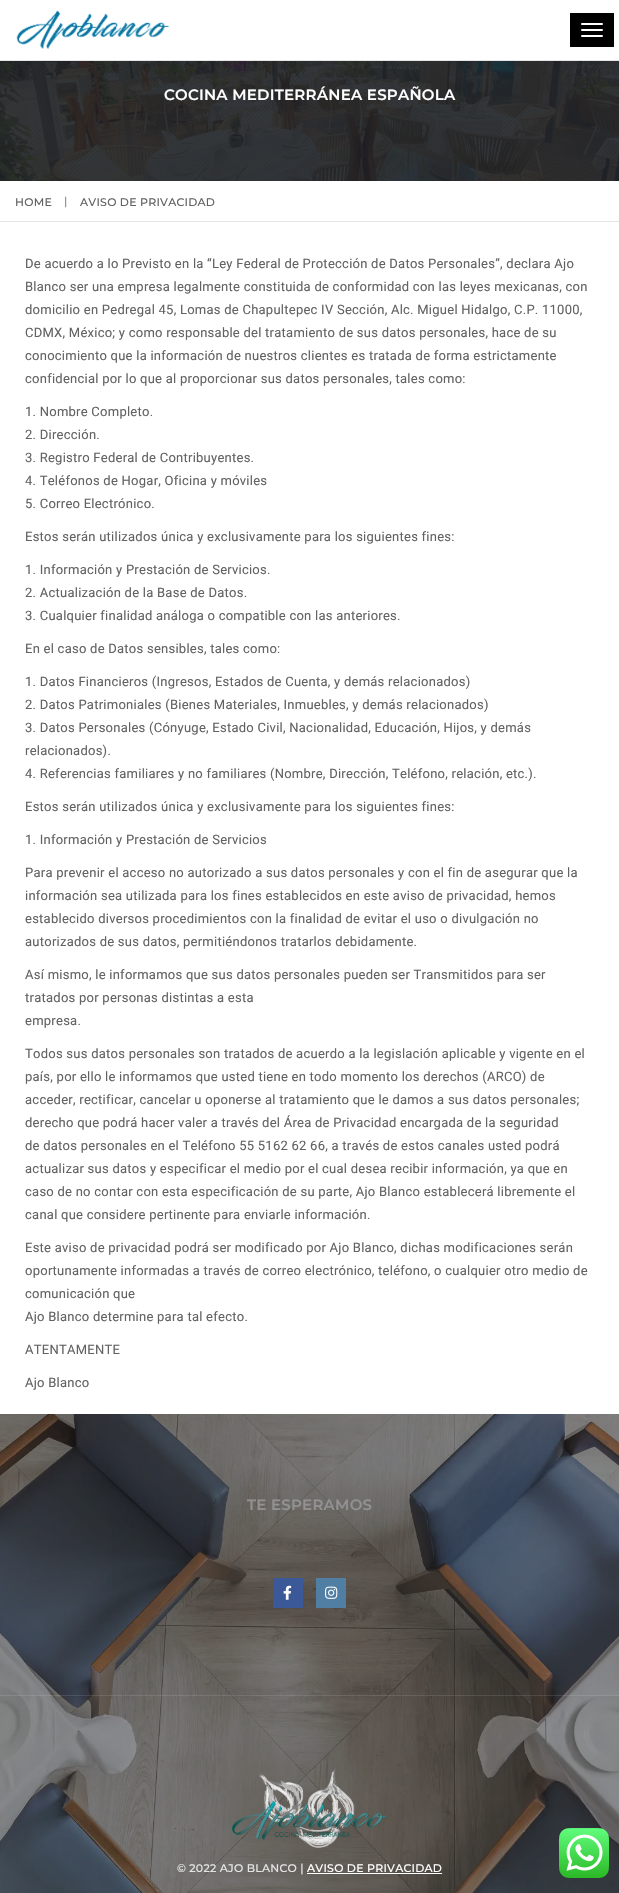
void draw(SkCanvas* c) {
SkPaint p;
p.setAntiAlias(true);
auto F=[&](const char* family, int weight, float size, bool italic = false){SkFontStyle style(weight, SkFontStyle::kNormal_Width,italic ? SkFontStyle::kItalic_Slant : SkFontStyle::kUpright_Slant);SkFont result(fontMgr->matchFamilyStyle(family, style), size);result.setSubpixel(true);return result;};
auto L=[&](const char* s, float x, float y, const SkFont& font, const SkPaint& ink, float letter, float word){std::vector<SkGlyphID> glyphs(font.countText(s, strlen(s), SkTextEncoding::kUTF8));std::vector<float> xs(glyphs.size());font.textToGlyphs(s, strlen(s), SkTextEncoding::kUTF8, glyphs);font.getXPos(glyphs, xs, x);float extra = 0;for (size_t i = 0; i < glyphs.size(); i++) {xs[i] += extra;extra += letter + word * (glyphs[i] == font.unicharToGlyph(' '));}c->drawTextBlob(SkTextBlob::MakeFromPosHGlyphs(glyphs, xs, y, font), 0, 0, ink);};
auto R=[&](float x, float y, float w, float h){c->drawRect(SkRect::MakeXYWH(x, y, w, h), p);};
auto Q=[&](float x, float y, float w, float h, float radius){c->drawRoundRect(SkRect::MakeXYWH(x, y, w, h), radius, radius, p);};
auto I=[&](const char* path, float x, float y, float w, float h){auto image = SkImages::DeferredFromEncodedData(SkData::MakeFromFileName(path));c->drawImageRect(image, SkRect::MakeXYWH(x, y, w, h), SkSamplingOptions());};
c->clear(0xffffffff);
p.setColor(0xffe6e6e6);
R(0,60,619,1);
I("1.png",16,10,154,39);
p.setColor(0xff000000);
R(570,13,44,34);
p.setColor(0xffffffff);
Q(581,23,22,2,1);
Q(581,29,22,2,1);
Q(581,35,22,2,1);
I("2.png",0,61,619,120);
auto f1 = F("Montserrat",600,15);
L("COCINA MEDITERRÁNEA ESPAÑOLA",164,100,f1,p,.25,0);
p.setColor(0xffe5e5e5);
R(0,221,619,1);
auto f2 = F("Montserrat",500,11);
p.setColor(0xff626262);
L("HOME",15,206,f2,p,.25,0);
p.setColor(0xff898989);
L("|",64,205,f2,p,.25,0);
p.setColor(0xff626262);
L("AVISO DE PRIVACIDAD",80,206,f2,p,.25,0);
auto f3 = F("Roboto",400,13);
L("De acuerdo a lo Previsto en la “Ley Federal de Protección de Datos Personales”, declara Ajo",25,268,f3,p,.25,0);
L("Blanco ser una empresa legalmente constituida de conformidad con las leyes mexicanas, con",25,291,f3,p,.25,0);
L("domicilio en Pedregal 45, Lomas de Chapultepec IV Sección, Alc. Miguel Hidalgo, C.P. 11000,",25,314,f3,p,.25,0);
L("CDMX, México; y como responsable del tratamiento de sus datos personales, hace de su",25,337,f3,p,.25,0);
L("conocimiento que la información de nuestros clientes es tratada de forma estrictamente",25,360,f3,p,.25,0);
L("confidencial por lo que al proporcionar sus datos personales, tales como:",25,383,f3,p,.25,0);
L("1. Nombre Completo.",25,416,f3,p,.25,0);
L("2. Dirección.",25,439,f3,p,.25,0);
L("3. Registro Federal de Contribuyentes.",25,462,f3,p,.25,0);
L("4. Teléfonos de Hogar, Oficina y móviles",25,485,f3,p,.25,0);
L("5. Correo Electrónico.",25,508,f3,p,.25,0);
L("Estos serán utilizados única y exclusivamente para los siguientes fines:",25,541,f3,p,.25,0);
L("1. Información y Prestación de Servicios.",25,574,f3,p,.25,0);
L("2. Actualización de la Base de Datos.",25,597,f3,p,.25,0);
L("3. Cualquier finalidad análoga o compatible con las anteriores.",25,620,f3,p,.25,0);
L("En el caso de Datos sensibles, tales como:",25,653,f3,p,.25,0);
L("1. Datos Financieros (Ingresos, Estados de Cuenta, y demás relacionados)",25,686,f3,p,.25,0);
L("2. Datos Patrimoniales (Bienes Materiales, Inmuebles, y demás relacionados)",25,709,f3,p,.25,0);
L("3. Datos Personales (Cónyuge, Estado Civil, Nacionalidad, Educación, Hijos, y demás",25,732,f3,p,.25,0);
L("relacionados).",25,755,f3,p,.25,0);
L("4. Referencias familiares y no familiares (Nombre, Dirección, Teléfono, relación, etc.).",25,778,f3,p,.25,0);
L("Estos serán utilizados única y exclusivamente para los siguientes fines:",25,811,f3,p,.25,0);
L("1. Información y Prestación de Servicios",25,844,f3,p,.25,0);
L("Para prevenir el acceso no autorizado a sus datos personales y con el fin de asegurar que la",25,877,f3,p,.25,0);
L("información sea utilizada para los fines establecidos en este aviso de privacidad, hemos",25,900,f3,p,.25,0);
L("establecido diversos procedimientos con la finalidad de evitar el uso o divulgación no",25,923,f3,p,.25,0);
L("autorizados de sus datos, permitiéndonos tratarlos debidamente.",25,946,f3,p,.25,0);
L("Así mismo, le informamos que sus datos personales pueden ser Transmitidos para ser",25,979,f3,p,.25,0);
L("tratados por personas distintas a esta",25,1002,f3,p,.25,0);
L("empresa.",25,1025,f3,p,.25,0);
L("Todos sus datos personales son tratados de acuerdo a la legislación aplicable y vigente en el",25,1058,f3,p,.25,0);
L("país, por ello le informamos que usted tiene en todo momento los derechos (ARCO) de",25,1081,f3,p,.25,0);
L("acceder, rectificar, cancelar u oponerse al tratamiento que le damos a sus datos personales;",25,1104,f3,p,.25,0);
L("derecho que podrá hacer valer a través del Área de Privacidad encargada de la seguridad",25,1127,f3,p,.25,0);
L("de datos personales en el Teléfono 55 5162 62 66, a través de estos canales usted podrá",25,1150,f3,p,.25,0);
L("actualizar sus datos y especificar el medio por el cual desea recibir información, ya que en",25,1173,f3,p,.25,0);
L("caso de no contar con esta especificación de su parte, Ajo Blanco establecerá libremente el",25,1196,f3,p,.25,0);
L("canal que considere pertinente para enviarle información.",25,1219,f3,p,.25,0);
L("Este aviso de privacidad podrá ser modificado por Ajo Blanco, dichas modificaciones serán",25,1252,f3,p,.25,0);
L("oportunamente informadas a través de correo electrónico, teléfono, o cualquier otro medio de",25,1275,f3,p,.25,0);
L("comunicación que",25,1298,f3,p,.25,0);
L("Ajo Blanco determine para tal efecto.",25,1321,f3,p,.25,0);
L("ATENTAMENTE",25,1354,f3,p,.25,0);
L("Ajo Blanco",25,1387,f3,p,.25,0);
I("3.png",0,1414,619,479);
p.setColor(0xff929292);
L("TE ESPERAMOS",247,1510,f1,p,.25,0);
p.setColor(0xff3b5998);
R(273,1578,30,30);
I("4.png",283,1585,9,15);
p.setColor(0xff517fa4);
R(316,1578,30,30);
I("5.png",325,1586,13,13);
p.setColor(0x1affffff);
R(0,1695,619,1);
I("6.png",231,1768,156,80);
p.setColor(0xffe5e5e5);
L("© 2022 AJO BLANCO |",177,1872,f2,p,.25,0);
p.setColor(0xffffffff);
L("AVISO DE PRIVACIDAD",307,1872,f2,p,.25,0);
R(307,1873,135,1);
I("7.png",559,1828,50,50);
}
